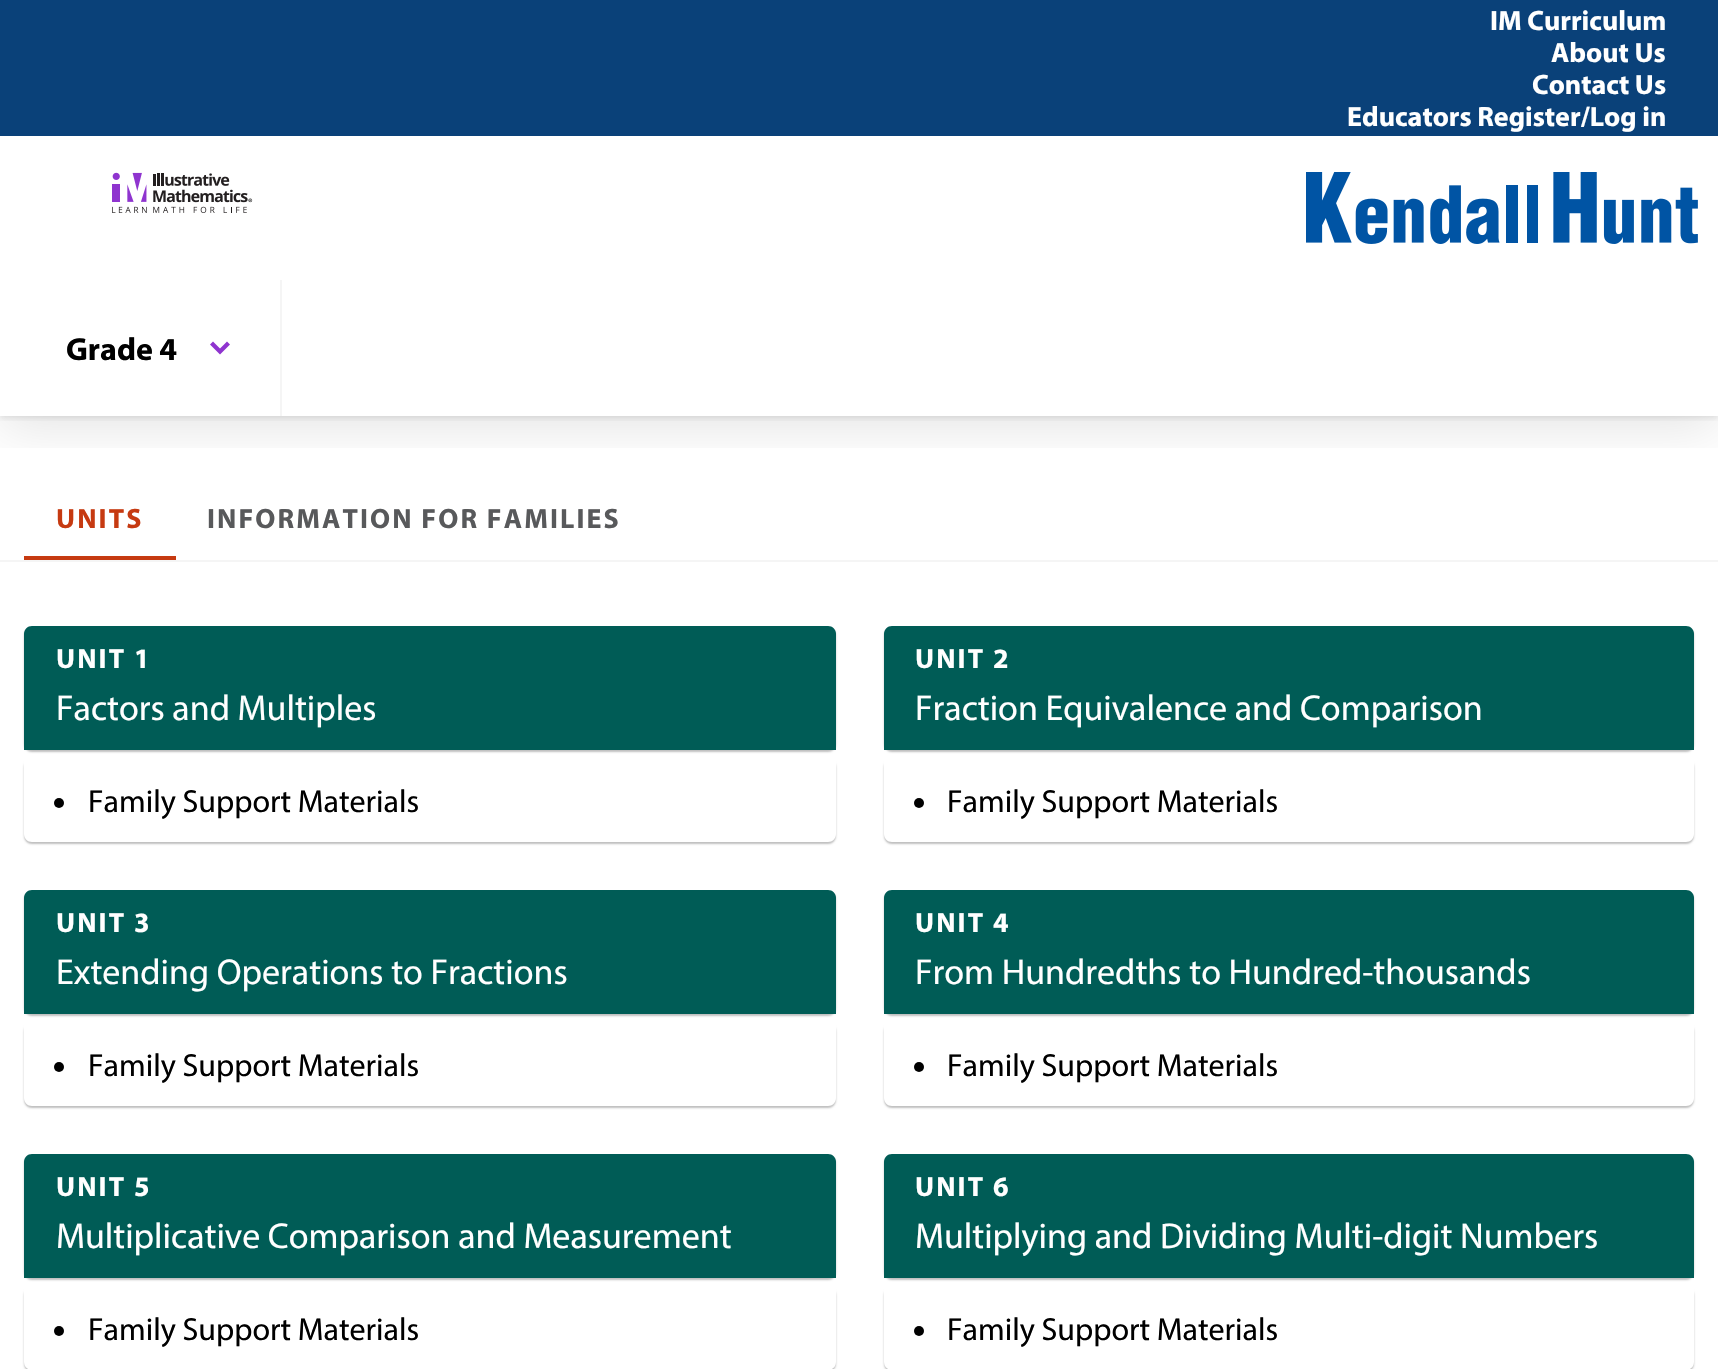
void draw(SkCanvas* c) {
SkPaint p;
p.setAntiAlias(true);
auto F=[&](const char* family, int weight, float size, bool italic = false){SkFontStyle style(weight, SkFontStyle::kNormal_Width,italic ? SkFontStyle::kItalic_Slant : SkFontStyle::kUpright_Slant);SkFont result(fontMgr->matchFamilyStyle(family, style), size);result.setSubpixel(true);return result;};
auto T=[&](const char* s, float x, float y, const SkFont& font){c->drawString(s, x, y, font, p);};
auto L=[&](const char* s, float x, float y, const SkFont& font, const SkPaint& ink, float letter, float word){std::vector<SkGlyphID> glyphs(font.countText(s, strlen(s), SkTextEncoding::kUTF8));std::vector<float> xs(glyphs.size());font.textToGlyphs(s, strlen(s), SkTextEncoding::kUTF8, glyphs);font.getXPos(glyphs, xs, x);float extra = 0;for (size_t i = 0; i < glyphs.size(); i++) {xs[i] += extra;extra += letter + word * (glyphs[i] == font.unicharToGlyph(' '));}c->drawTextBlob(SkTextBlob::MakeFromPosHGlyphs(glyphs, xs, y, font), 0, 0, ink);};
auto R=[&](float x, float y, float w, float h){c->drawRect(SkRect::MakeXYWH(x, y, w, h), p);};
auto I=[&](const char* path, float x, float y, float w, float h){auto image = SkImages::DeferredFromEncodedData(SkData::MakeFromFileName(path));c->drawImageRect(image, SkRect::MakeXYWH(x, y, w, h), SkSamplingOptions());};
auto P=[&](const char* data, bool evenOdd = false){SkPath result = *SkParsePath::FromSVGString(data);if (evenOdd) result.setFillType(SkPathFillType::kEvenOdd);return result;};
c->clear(0xffffffff);
c->save();
c->clipRect(SkRect::MakeXYWH(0,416,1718,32));
p.setColor(0x1a000000);
p.setMaskFilter(SkMaskFilter::MakeBlur(kNormal_SkBlurStyle, 24));
c->drawRect(SkRect::MakeXYWH(0,148,1718,280),p);
p.setMaskFilter(nullptr);
c->restore();
c->save();
c->clipRect(SkRect::MakeXYWH(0,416,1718,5));
p.setMaskFilter(SkMaskFilter::MakeBlur(kNormal_SkBlurStyle, 3));
c->drawRect(SkRect::MakeXYWH(0,138,1718,280),p);
p.setMaskFilter(nullptr);
c->restore();
p.setColor(0xff0a4179);
R(0,0,1718,136);
auto f1 = F("Myriad",700,28);
p.setColor(0xffffffff);
T("IM Curriculum",1490,30,f1);
T("About Us",1551,62,f1);
T("Contact Us",1532,94,f1);
T("Educators Register/Log in",1347,126,f1);
I("1.png",112,172,141,41);
I("2.png",1306,172,392,72);
p.setColor(0xfff5f5f5);
R(280,280,2,136);
auto f2 = F("Myriad",700,32);
p.setColor(0xff000000);
T("Grade 4",66,360,f2);
p.setColor(0xff8f34cf);
c->drawPath(P("M220 354.5l10-10l-3-3l-7 7l-7-7l-3 3z"),p);
p.setColor(0xfff5f5f5);
R(0,560,1718,2);
p.setColor(0xffc63a11);
R(24,556,152,4);
L("UNITS",56,528,f1,p,2.1,0);
p.setColor(0xff58595b);
L("INFORMATION FOR FAMILIES",207,528,f1,p,2.1,0);
p.setColor(0x40000000);
p.setMaskFilter(SkMaskFilter::MakeBlur(kNormal_SkBlurStyle, 1));
c->drawRoundRect(SkRect::MakeXYWH(24,628,812,124),8,8,p);
p.setMaskFilter(nullptr);
p.setColor(0xff005c56);
c->drawPath(P("M32 626h796c4.5 0 8 3.5 8 8v116h-812v-116c0-4.5 3.5-8 8-8z"),p);
p.setColor(0xffffffff);
L("UNIT 1",56,668,f1,p,2.1,0);
auto f3 = F("Myriad",400,36);
T("Factors and Multiples",56,720,f3);
c->save();
c->clipPath(P("M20 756h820v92h-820zm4 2h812v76c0 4.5-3.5 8-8 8h-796c-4.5 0-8-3.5-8-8z",true),true);
p.setColor(0x40000000);
p.setMaskFilter(SkMaskFilter::MakeBlur(kNormal_SkBlurStyle, 1));
c->drawRoundRect(SkRect::MakeXYWH(24,760,812,84),8,8,p);
p.setMaskFilter(nullptr);
c->restore();
p.setColor(0xff000000);
c->drawCircle(59,803,5,p);
auto f4 = F("Myriad",400,32);
T("Family Support Materials",88,812,f4);
p.setColor(0x40000000);
p.setMaskFilter(SkMaskFilter::MakeBlur(kNormal_SkBlurStyle, 1));
c->drawRoundRect(SkRect::MakeXYWH(884,628,810,124),8,8,p);
p.setMaskFilter(nullptr);
p.setColor(0xff005c56);
c->drawPath(P("M892 626h794c4.5 0 8 3.5 8 8v116h-810v-116c0-4.5 3.5-8 8-8z"),p);
p.setColor(0xffffffff);
L("UNIT 2",915,668,f1,p,2.1,0);
T("Fraction Equivalence and Comparison",915,720,f3);
c->save();
c->clipPath(P("M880 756h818v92h-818zm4 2h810v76c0 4.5-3.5 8-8 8h-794c-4.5 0-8-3.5-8-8z",true),true);
p.setColor(0x40000000);
p.setMaskFilter(SkMaskFilter::MakeBlur(kNormal_SkBlurStyle, 1));
c->drawRoundRect(SkRect::MakeXYWH(884,760,810,84),8,8,p);
p.setMaskFilter(nullptr);
c->restore();
p.setColor(0xff000000);
c->drawCircle(919,803,5,p);
T("Family Support Materials",947,812,f4);
p.setColor(0x40000000);
p.setMaskFilter(SkMaskFilter::MakeBlur(kNormal_SkBlurStyle, 1));
c->drawRoundRect(SkRect::MakeXYWH(24,892,812,124),8,8,p);
p.setMaskFilter(nullptr);
p.setColor(0xff005c56);
c->drawPath(P("M32 890h796c4.5 0 8 3.5 8 8v116h-812v-116c0-4.5 3.5-8 8-8z"),p);
p.setColor(0xffffffff);
L("UNIT 3",56,932,f1,p,2.1,0);
T("Extending Operations to Fractions",56,984,f3);
c->save();
c->clipPath(P("M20 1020h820v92h-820zm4 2h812v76c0 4.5-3.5 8-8 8h-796c-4.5 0-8-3.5-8-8z",true),true);
p.setColor(0x40000000);
p.setMaskFilter(SkMaskFilter::MakeBlur(kNormal_SkBlurStyle, 1));
c->drawRoundRect(SkRect::MakeXYWH(24,1024,812,84),8,8,p);
p.setMaskFilter(nullptr);
c->restore();
p.setColor(0xff000000);
c->drawCircle(59,1067,5,p);
T("Family Support Materials",88,1076,f4);
p.setColor(0x40000000);
p.setMaskFilter(SkMaskFilter::MakeBlur(kNormal_SkBlurStyle, 1));
c->drawRoundRect(SkRect::MakeXYWH(884,892,810,124),8,8,p);
p.setMaskFilter(nullptr);
p.setColor(0xff005c56);
c->drawPath(P("M892 890h794c4.5 0 8 3.5 8 8v116h-810v-116c0-4.5 3.5-8 8-8z"),p);
p.setColor(0xffffffff);
L("UNIT 4",915,932,f1,p,2.1,0);
T("From Hundredths to Hundred-thousands",915,984,f3);
c->save();
c->clipPath(P("M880 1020h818v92h-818zm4 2h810v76c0 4.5-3.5 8-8 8h-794c-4.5 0-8-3.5-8-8z",true),true);
p.setColor(0x40000000);
p.setMaskFilter(SkMaskFilter::MakeBlur(kNormal_SkBlurStyle, 1));
c->drawRoundRect(SkRect::MakeXYWH(884,1024,810,84),8,8,p);
p.setMaskFilter(nullptr);
c->restore();
p.setColor(0xff000000);
c->drawCircle(919,1067,5,p);
T("Family Support Materials",947,1076,f4);
p.setColor(0x40000000);
p.setMaskFilter(SkMaskFilter::MakeBlur(kNormal_SkBlurStyle, 1));
c->drawRoundRect(SkRect::MakeXYWH(24,1156,812,124),8,8,p);
p.setMaskFilter(nullptr);
p.setColor(0xff005c56);
c->drawPath(P("M32 1154h796c4.5 0 8 3.5 8 8v116h-812v-116c0-4.5 3.5-8 8-8z"),p);
p.setColor(0xffffffff);
L("UNIT 5",56,1196,f1,p,2.1,0);
T("Multiplicative Comparison and Measurement",56,1248,f3);
c->save();
c->clipPath(P("M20 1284h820v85h-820zm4 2h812v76c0 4.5-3.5 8-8 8h-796c-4.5 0-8-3.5-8-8z",true),true);
p.setColor(0x40000000);
p.setMaskFilter(SkMaskFilter::MakeBlur(kNormal_SkBlurStyle, 1));
c->drawRoundRect(SkRect::MakeXYWH(24,1288,812,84),8,8,p);
p.setMaskFilter(nullptr);
c->restore();
p.setColor(0xff000000);
c->drawCircle(59,1331,5,p);
T("Family Support Materials",88,1340,f4);
p.setColor(0x40000000);
p.setMaskFilter(SkMaskFilter::MakeBlur(kNormal_SkBlurStyle, 1));
c->drawRoundRect(SkRect::MakeXYWH(884,1156,810,124),8,8,p);
p.setMaskFilter(nullptr);
p.setColor(0xff005c56);
c->drawPath(P("M892 1154h794c4.5 0 8 3.5 8 8v116h-810v-116c0-4.5 3.5-8 8-8z"),p);
p.setColor(0xffffffff);
L("UNIT 6",915,1196,f1,p,2.1,0);
T("Multiplying and Dividing Multi-digit Numbers",915,1248,f3);
c->save();
c->clipPath(P("M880 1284h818v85h-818zm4 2h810v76c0 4.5-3.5 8-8 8h-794c-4.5 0-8-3.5-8-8z",true),true);
p.setColor(0x40000000);
p.setMaskFilter(SkMaskFilter::MakeBlur(kNormal_SkBlurStyle, 1));
c->drawRoundRect(SkRect::MakeXYWH(884,1288,810,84),8,8,p);
p.setMaskFilter(nullptr);
c->restore();
p.setColor(0xff000000);
c->drawCircle(919,1331,5,p);
T("Family Support Materials",947,1340,f4);
}
